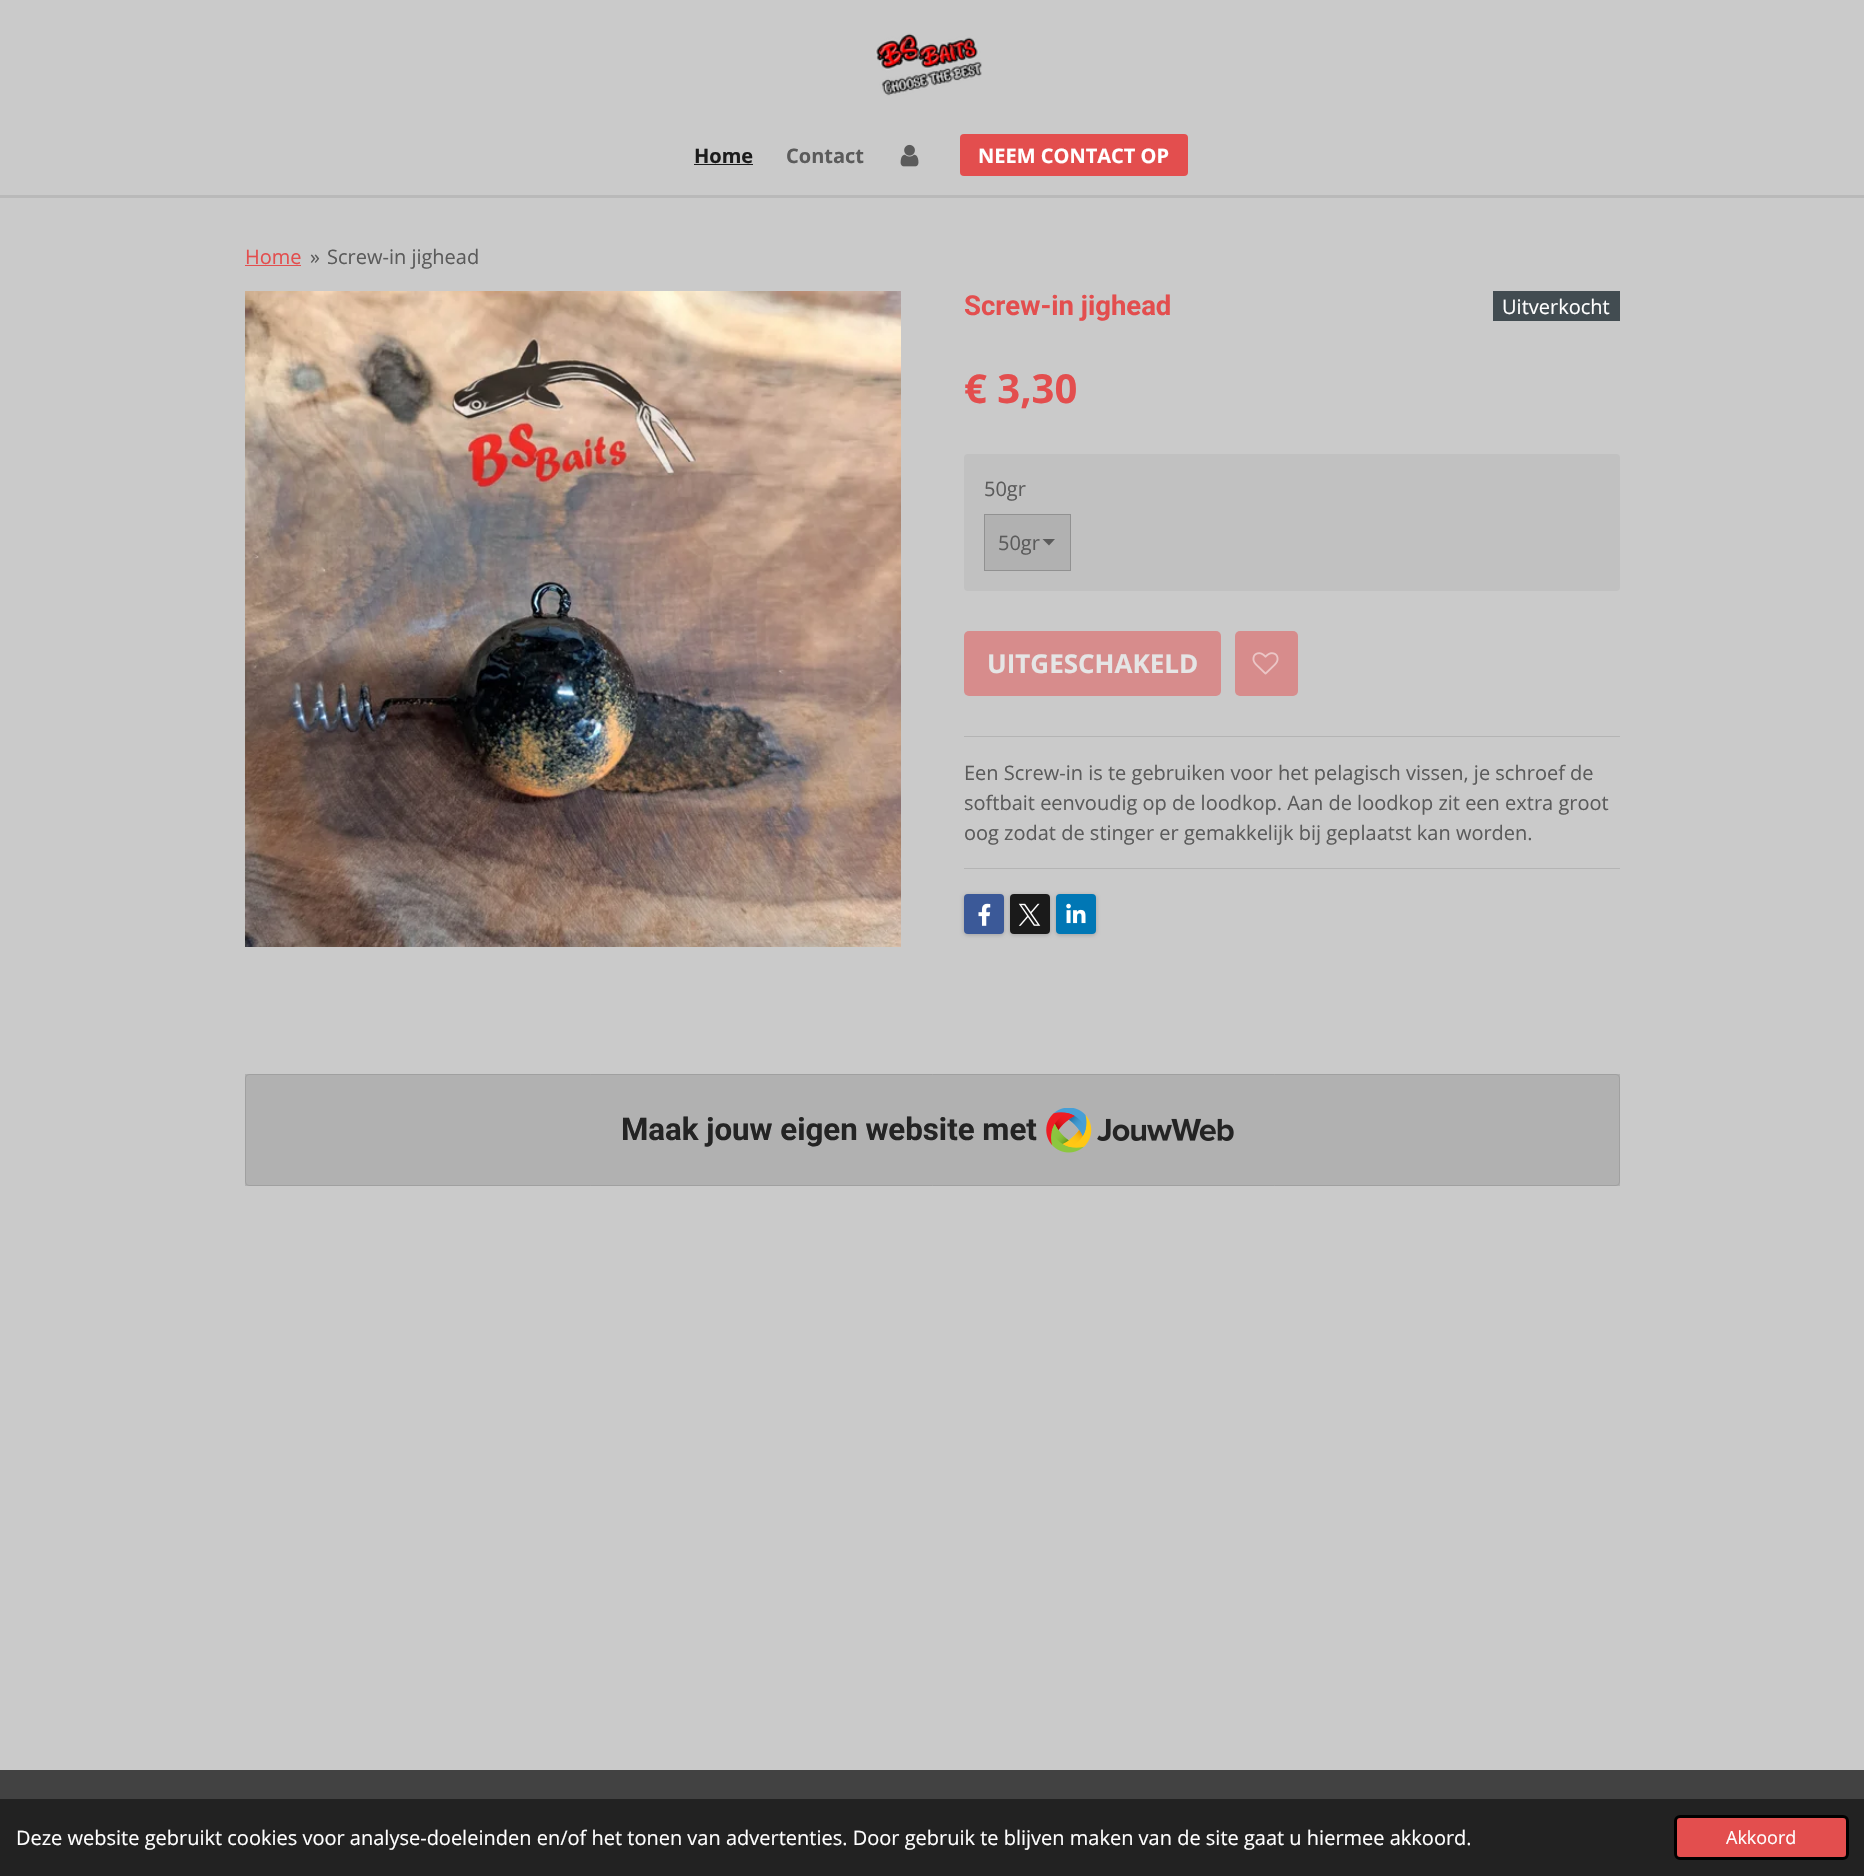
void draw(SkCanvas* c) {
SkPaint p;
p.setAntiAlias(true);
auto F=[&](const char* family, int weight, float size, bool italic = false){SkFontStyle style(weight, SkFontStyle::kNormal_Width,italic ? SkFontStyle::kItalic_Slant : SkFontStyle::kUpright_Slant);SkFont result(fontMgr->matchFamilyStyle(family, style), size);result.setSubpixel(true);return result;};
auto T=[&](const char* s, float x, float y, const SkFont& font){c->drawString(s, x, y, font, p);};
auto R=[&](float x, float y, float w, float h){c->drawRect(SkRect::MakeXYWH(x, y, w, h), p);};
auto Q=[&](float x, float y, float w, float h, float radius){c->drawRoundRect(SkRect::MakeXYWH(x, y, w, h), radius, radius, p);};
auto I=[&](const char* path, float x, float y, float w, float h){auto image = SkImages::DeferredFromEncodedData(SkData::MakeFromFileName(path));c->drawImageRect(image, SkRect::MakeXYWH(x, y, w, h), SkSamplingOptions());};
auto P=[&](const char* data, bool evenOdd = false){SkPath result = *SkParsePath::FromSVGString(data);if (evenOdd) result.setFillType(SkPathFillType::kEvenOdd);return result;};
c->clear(0xffcacaca);
I("1.png",875,33,107,63);
auto f1 = F("Open Sans",700,20);
p.setColor(0xff1b1b1b);
T("Home",694,163,f1);
R(694,164,59,1);
p.setColor(0xff5b5b5b);
T("Contact",786,163,f1);
I("2.png",900,144,19,23);
p.setColor(0xffe34e4e);
Q(960,134,228,42,4);
p.setColor(0xffffffff);
T("NEEM CONTACT OP",978,163,f1);
p.setColor(0xffb9b9b9);
R(0,195,1864,3);
auto f2 = F("Open Sans",400,20);
p.setColor(0xffe34e4e);
T("Home",245,264,f2);
R(245,265,56,1);
p.setColor(0xff5b5b5b);
T("»",310,264,f2);
T("Screw-in jighead",327,264,f2);
I("3.png",245,291,656,656);
auto f3 = F("Roboto",700,27.5);
p.setColor(0xffe34e4e);
T("Screw-in jighead",964,315,f3);
p.setColor(0xff424c51);
R(1493,291,127,30);
p.setColor(0xffffffff);
T("Uitverkocht",1502,314,f2);
auto f4 = F("Open Sans",700,40);
p.setColor(0xffe34e4e);
T("€ 3,30",964,403,f4);
p.setColor(0xffc1c1c1);
Q(964,454,656,137,4);
p.setColor(0xff5b5b5b);
T("50gr",984,496,f2);
p.setColor(0xffb1b1b1);
R(985,515,85,55);
p.setColor(0xff5b5b5b);
c->drawPath(P("M1049 545.5l-6.5-6.5h12.5z"),p);
p.setStroke(true);
p.setStrokeWidth(1);
p.setColor(0xff919191);
c->drawRect(SkRect::MakeXYWH(984.5,514.5,86,56),p);
p.setStroke(false);
p.setColor(0xff5b5b5b);
T("50gr",998,550,f2);
p.setColor(0xffd78c8c);
Q(964,631,257,65,5);
auto f5 = F("Open Sans",700,26);
p.setColor(0xffe5e5e5);
T("UITGESCHAKELD",987,673,f5);
p.setColor(0xffd78c8c);
Q(1235,631,63,65,5);
I("4.png",1252,652,27,23);
p.setColor(0xffb4b4b4);
R(964,736,656,1);
p.setColor(0xff5b5b5b);
T("Een Screw-in is te gebruiken voor het pelagisch vissen, je schroef de",964,780,f2);
T("softbait eenvoudig op de loodkop. Aan de loodkop zit een extra groot",964,810,f2);
T("oog zodat de stinger er gemakkelijk bij geplaatst kan worden.",964,840,f2);
p.setColor(0xffb4b4b4);
R(964,868,656,1);
p.setColor(0x33000000);
p.setMaskFilter(SkMaskFilter::MakeBlur(kNormal_SkBlurStyle, 2));
c->drawRoundRect(SkRect::MakeXYWH(964,895,40,40),4,4,p);
p.setMaskFilter(nullptr);
p.setColor(0xff3b5998);
Q(964,894,40,40,4);
I("5.png",978,903,13,23);
p.setColor(0x33000000);
p.setMaskFilter(SkMaskFilter::MakeBlur(kNormal_SkBlurStyle, 2));
c->drawRoundRect(SkRect::MakeXYWH(1010,895,40,40),4,4,p);
p.setMaskFilter(nullptr);
p.setColor(0xff1a1a1a);
Q(1010,894,40,40,4);
I("6.png",1018,903,23,23);
p.setColor(0x33000000);
p.setMaskFilter(SkMaskFilter::MakeBlur(kNormal_SkBlurStyle, 2));
c->drawRoundRect(SkRect::MakeXYWH(1056,895,40,40),4,4,p);
p.setMaskFilter(nullptr);
p.setColor(0xff0077b5);
Q(1056,894,40,40,4);
I("7.png",1066,903,20,21);
p.setColor(0xffb1b1b1);
R(245,1074,1375,112);
p.setStroke(true);
p.setColor(0xffa0a0a0);
c->drawRoundRect(SkRect::MakeXYWH(245.5,1074.5,1374,111),3.5,3.5,p);
auto f6 = F("Roboto",700,31.25);
p.setStroke(false);
p.setColor(0xff242424);
T("Maak jouw eigen website met",621,1140,f6);
I("8.png",1046,1108,188,45);
p.setColor(0xff424242);
R(0,1770,1864,29);
p.setColor(0xff222222);
R(0,1799,1864,77);
p.setColor(0xffffffff);
T("Deze website gebruikt cookies voor analyse-doeleinden en/of het tonen van advertenties. Door gebruik te blijven maken van de site gaat u hiermee akkoord.",16,1845,f2);
p.setColor(0xffe34e4e);
c->drawRoundRect(SkRect::MakeXYWH(1675.5,1816.5,172,42),4.5,4.5,p);
p.setStroke(true);
p.setStrokeWidth(3);
p.setColor(0xff000000);
c->drawRoundRect(SkRect::MakeXYWH(1675.5,1816.5,172,42),4.5,4.5,p);
auto f7 = F("Open Sans",400,18);
p.setStroke(false);
p.setColor(0xffffffff);
T("Akkoord",1726,1844,f7);
}
